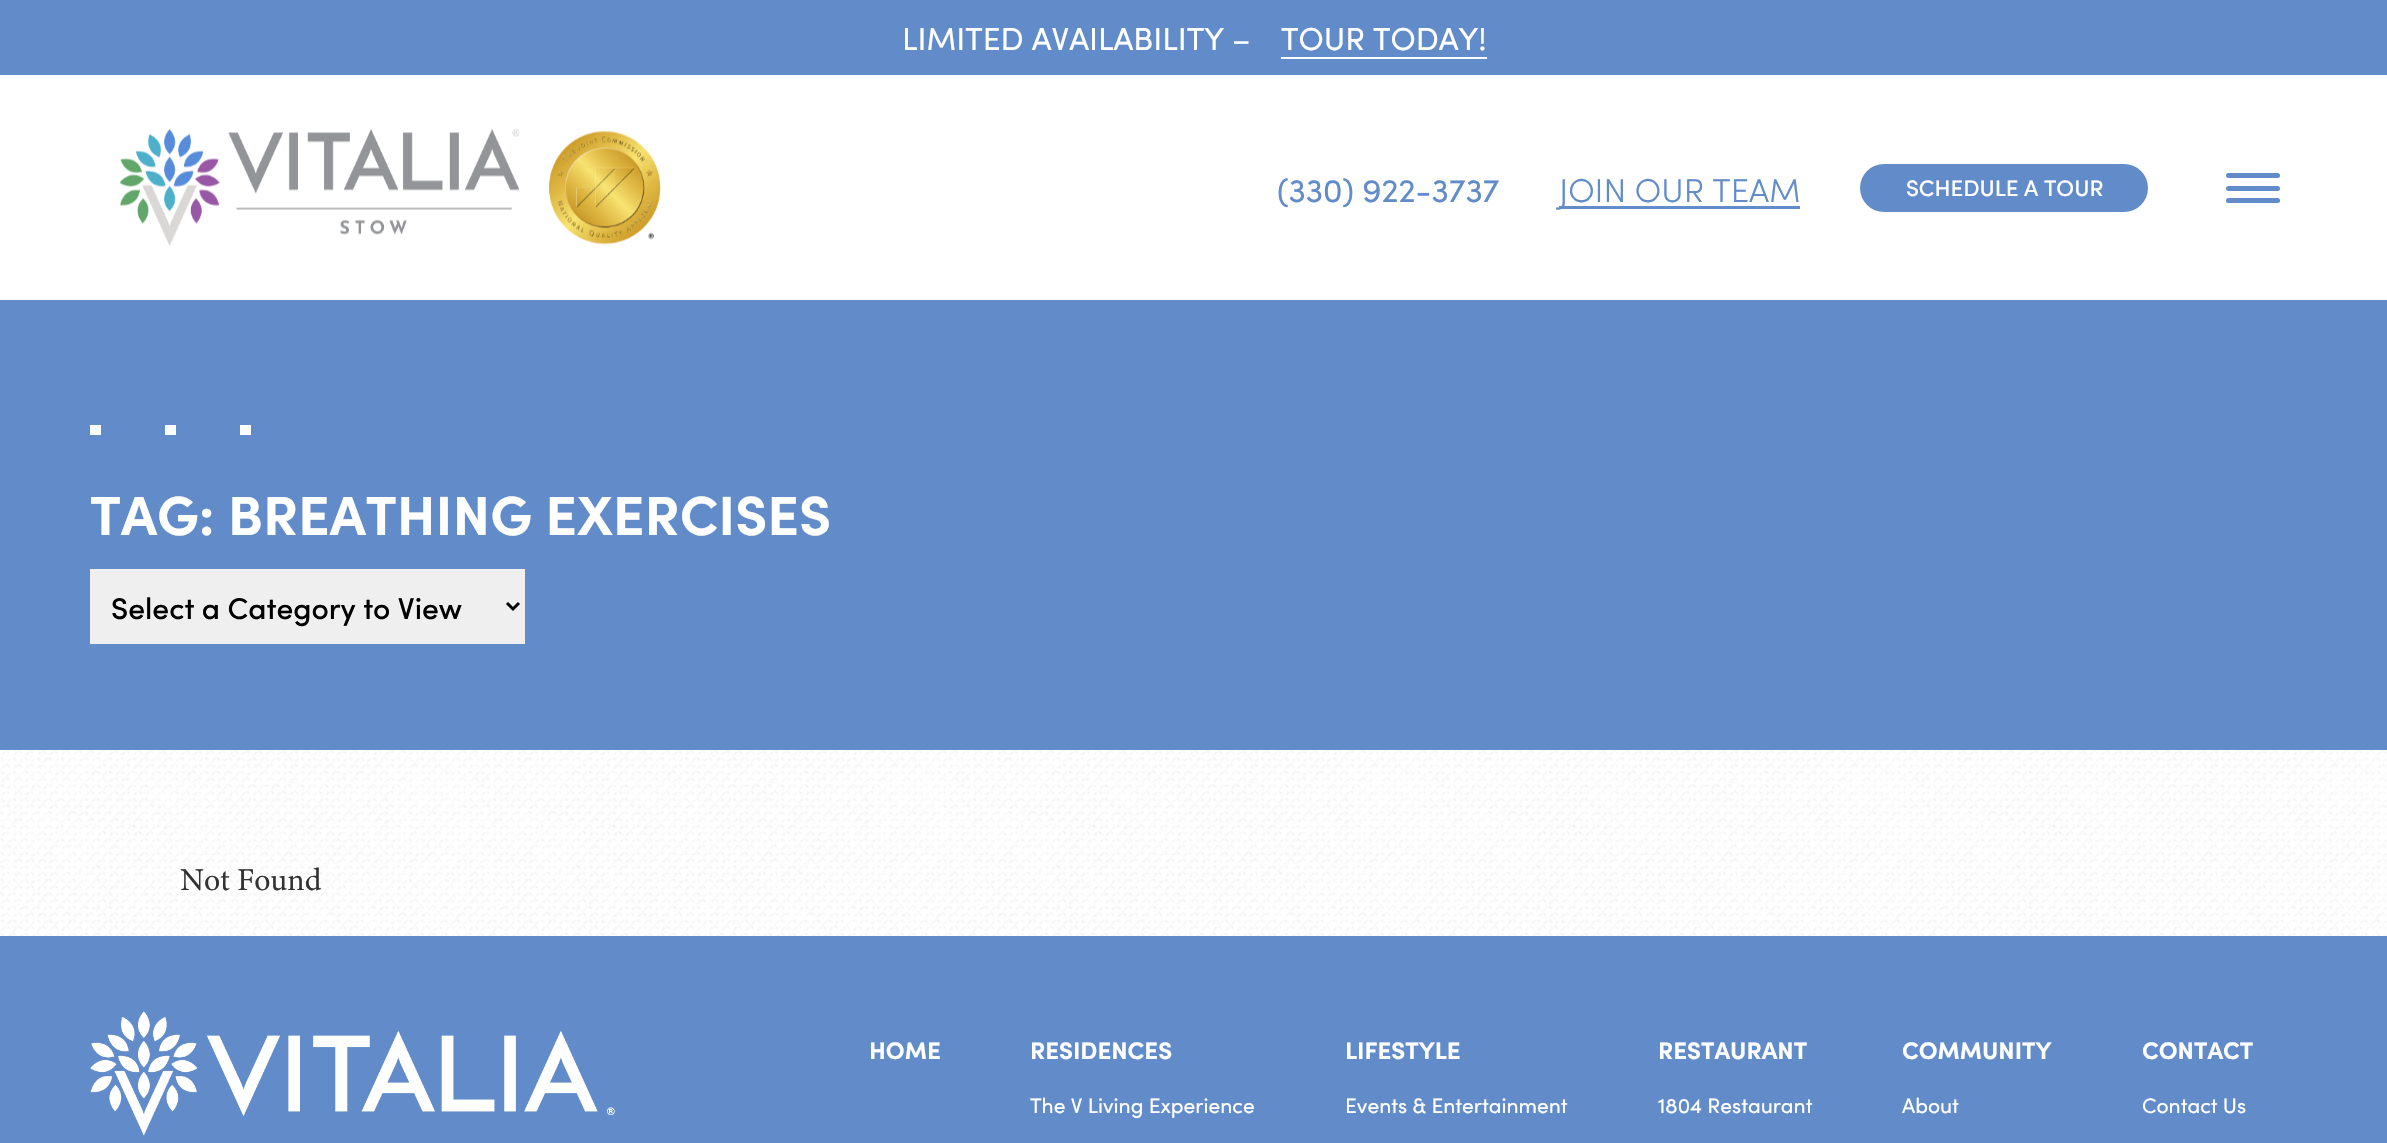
void draw(SkCanvas* c) {
SkPaint p;
p.setAntiAlias(true);
auto F=[&](const char* family, int weight, float size, bool italic = false){SkFontStyle style(weight, SkFontStyle::kNormal_Width,italic ? SkFontStyle::kItalic_Slant : SkFontStyle::kUpright_Slant);SkFont result(fontMgr->matchFamilyStyle(family, style), size);result.setSubpixel(true);return result;};
auto T=[&](const char* s, float x, float y, const SkFont& font){c->drawString(s, x, y, font, p);};
auto R=[&](float x, float y, float w, float h){c->drawRect(SkRect::MakeXYWH(x, y, w, h), p);};
auto Q=[&](float x, float y, float w, float h, float radius){c->drawRoundRect(SkRect::MakeXYWH(x, y, w, h), radius, radius, p);};
auto I=[&](const char* path, float x, float y, float w, float h){auto image = SkImages::DeferredFromEncodedData(SkData::MakeFromFileName(path));c->drawImageRect(image, SkRect::MakeXYWH(x, y, w, h), SkSamplingOptions());};
auto P=[&](const char* data, bool evenOdd = false){SkPath result = *SkParsePath::FromSVGString(data);if (evenOdd) result.setFillType(SkPathFillType::kEvenOdd);return result;};
c->clear(0xffffffff);
I("1.png",0,750,2387,186);
p.setColor(0xff618cc9);
R(0,0,2387,75);
auto f1 = F("Sofia",400,31.75);
p.setColor(0xffffffff);
T("LIMITED AVAILABILITY –",902,50,f1);
T("TOUR TODAY!",1281,50,f1);
R(1281,57,206,2);
I("2.png",119,128,542,118);
auto f2 = F("Sofia",400,33);
p.setColor(0xff618cc9);
T("(330) 922-3737",1277,202,f2);
R(1559,206,241,3);
auto f3 = F("Sofia",300,33);
T("JOIN OUR TEAM",1559,202,f3);
Q(1860,164,288,48,24);
auto f4 = F("Sofia",500,22.5);
p.setColor(0xffffffff);
T("SCHEDULE A TOUR",1906,196,f4);
p.setColor(0xff618cc9);
Q(2226,173,54,5,2.5);
Q(2226,186,54,5,2.5);
Q(2226,198,54,5,2.5);
R(0,300,2387,450);
p.setColor(0xffffffff);
R(90,425,11,10);
R(165,425,11,10);
R(240,425,11,10);
auto f5 = F("Sofia",700,55.25);
T("TAG: BREATHING EXERCISES",90,535,f5);
p.setColor(0xffefefef);
R(90,569,435,75);
p.setStroke(true);
p.setStrokeWidth(3);
p.setColor(0xff000000);
c->drawPath(P("M507 603l6 6l6-6"),p);
auto f6 = F("Sofia",500,30);
p.setStroke(false);
T("Select a Category to View",111,619,f6);
auto f7 = F("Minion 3",400,31.75);
p.setColor(0xff333131);
T("Not Found",180,890,f7);
p.setColor(0xff618cc9);
R(0,936,2387,207);
I("3.png",90,1011,525,125);
auto f8 = F("Sofia",700,24);
p.setColor(0xffffffff);
T("HOME",869,1059,f8);
T("RESIDENCES",1030,1059,f8);
auto f9 = F("Sofia",400,21);
T("The V Living Experience",1030,1113,f9);
T("LIFESTYLE",1345,1059,f8);
T("Events & Entertainment",1345,1113,f9);
T("RESTAURANT",1658,1059,f8);
T("1804 Restaurant",1658,1113,f9);
T("COMMUNITY",1902,1059,f8);
T("About",1902,1113,f9);
T("CONTACT",2142,1059,f8);
T("Contact Us",2142,1113,f9);
}
